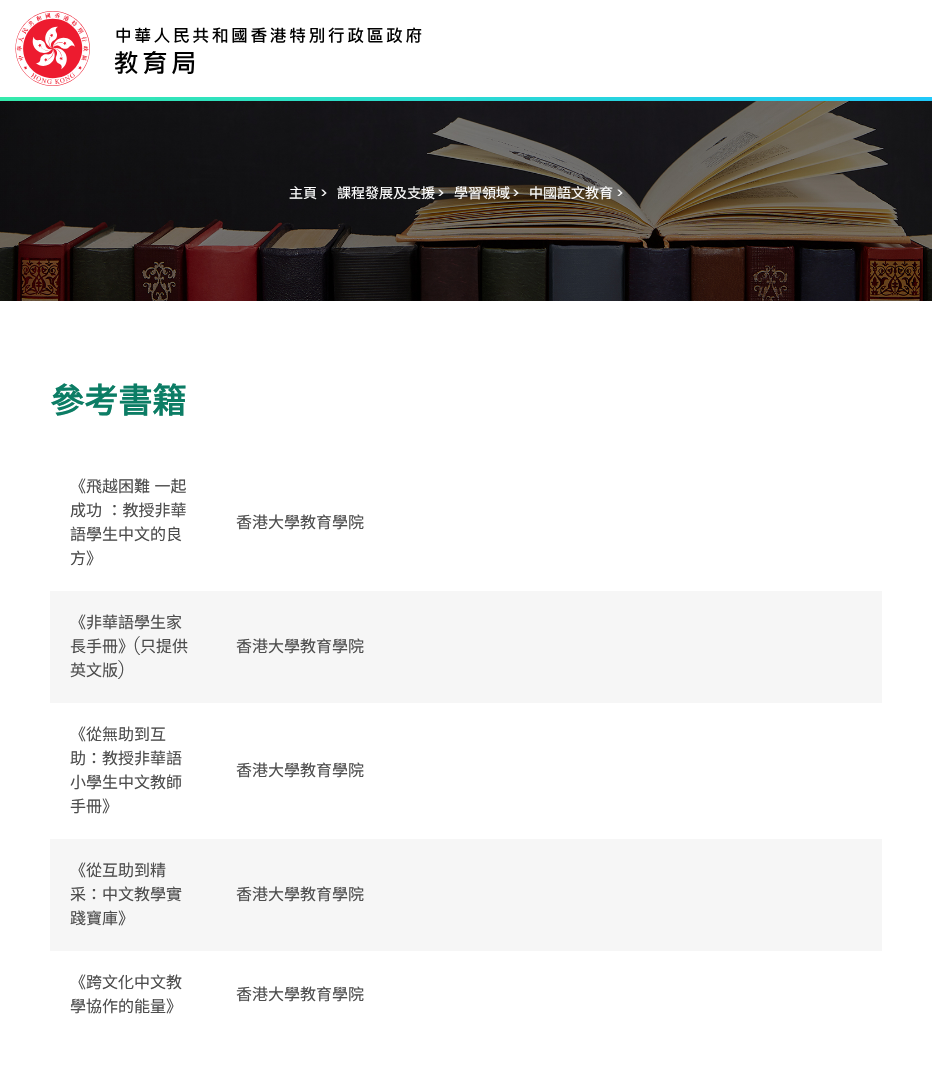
void draw(SkCanvas* c) {
SkPaint p;
p.setAntiAlias(true);
auto F=[&](const char* family, int weight, float size, bool italic = false){SkFontStyle style(weight, SkFontStyle::kNormal_Width,italic ? SkFontStyle::kItalic_Slant : SkFontStyle::kUpright_Slant);SkFont result(fontMgr->matchFamilyStyle(family, style), size);result.setSubpixel(true);return result;};
auto T=[&](const char* s, float x, float y, const SkFont& font){c->drawString(s, x, y, font, p);};
auto L=[&](const char* s, float x, float y, const SkFont& font, const SkPaint& ink, float letter, float word){std::vector<SkGlyphID> glyphs(font.countText(s, strlen(s), SkTextEncoding::kUTF8));std::vector<float> xs(glyphs.size());font.textToGlyphs(s, strlen(s), SkTextEncoding::kUTF8, glyphs);font.getXPos(glyphs, xs, x);float extra = 0;for (size_t i = 0; i < glyphs.size(); i++) {xs[i] += extra;extra += letter + word * (glyphs[i] == font.unicharToGlyph(' '));}c->drawTextBlob(SkTextBlob::MakeFromPosHGlyphs(glyphs, xs, y, font), 0, 0, ink);};
auto R=[&](float x, float y, float w, float h){c->drawRect(SkRect::MakeXYWH(x, y, w, h), p);};
auto I=[&](const char* path, float x, float y, float w, float h){auto image = SkImages::DeferredFromEncodedData(SkData::MakeFromFileName(path));c->drawImageRect(image, SkRect::MakeXYWH(x, y, w, h), SkSamplingOptions());};
c->clear(0xffffffff);
I("1.png",15,11,407,75);
{
const SkColor colors[] = {0xff35eaac,0xff20c9fa};
const float stops[] = {0,1};
const SkPoint ends[] = {{0,99}, {932,99}};
p.setShader(SkGradientShader::MakeLinear(ends, colors, stops, 2, SkTileMode::kClamp));
p.setAlpha(255);
}
R(0,97,932,4);
I("2.png",0,101,932,200);
auto f1 = F("Noto Sans CJK HK",400,14);
p.setShader(nullptr);
p.setColor(0xffffffff);
T("主頁",289,198,f1);
auto f2 = F("Poppins",400,14);
T(">",321,198,f2);
T("課程發展及支援",337,198,f1);
T(">",438,198,f2);
T("學習領域",454,198,f1);
T(">",513,198,f2);
T("中國語文教育",529,198,f1);
T(">",617,198,f2);
auto f3 = F("Noto Sans CJK HK",700,34);
p.setColor(0xff0c7d65);
T("參考書籍",50,413,f3);
auto f4 = F("Noto Sans CJK HK",400,16);
p.setColor(0xff4d4d4d);
L("《飛越困難 一起",70,492,f4,p,0,1);
L("成功 ：教授非華",70,516,f4,p,0,1);
T("語學生中文的良",70,540,f4);
T("方》",70,564,f4);
T("香港大學教育學院",236,528,f4);
p.setColor(0xfff6f6f6);
R(50,591,832,112);
p.setColor(0xff4d4d4d);
T("《非華語學生家",70,628,f4);
T("長手冊》",70,652,f4);
auto f5 = F("Poppins",300,16);
T("(",134,652,f5);
T("只提供",140,652,f4);
T("英文版",70,676,f4);
T(")",118,676,f5);
T("香港大學教育學院",236,652,f4);
T("《從無助到互",70,740,f4);
T("助：教授非華語",70,764,f4);
T("小學生中文教師",70,788,f4);
T("手冊》",70,812,f4);
T("香港大學教育學院",236,776,f4);
p.setColor(0xfff6f6f6);
R(50,839,832,112);
p.setColor(0xff4d4d4d);
T("《從互助到精",70,876,f4);
T("采：中文教學實",70,900,f4);
T("踐寶庫》",70,924,f4);
T("香港大學教育學院",236,900,f4);
T("《跨文化中文教",70,988,f4);
T("學協作的能量》",70,1012,f4);
T("香港大學教育學院",236,1000,f4);
}
